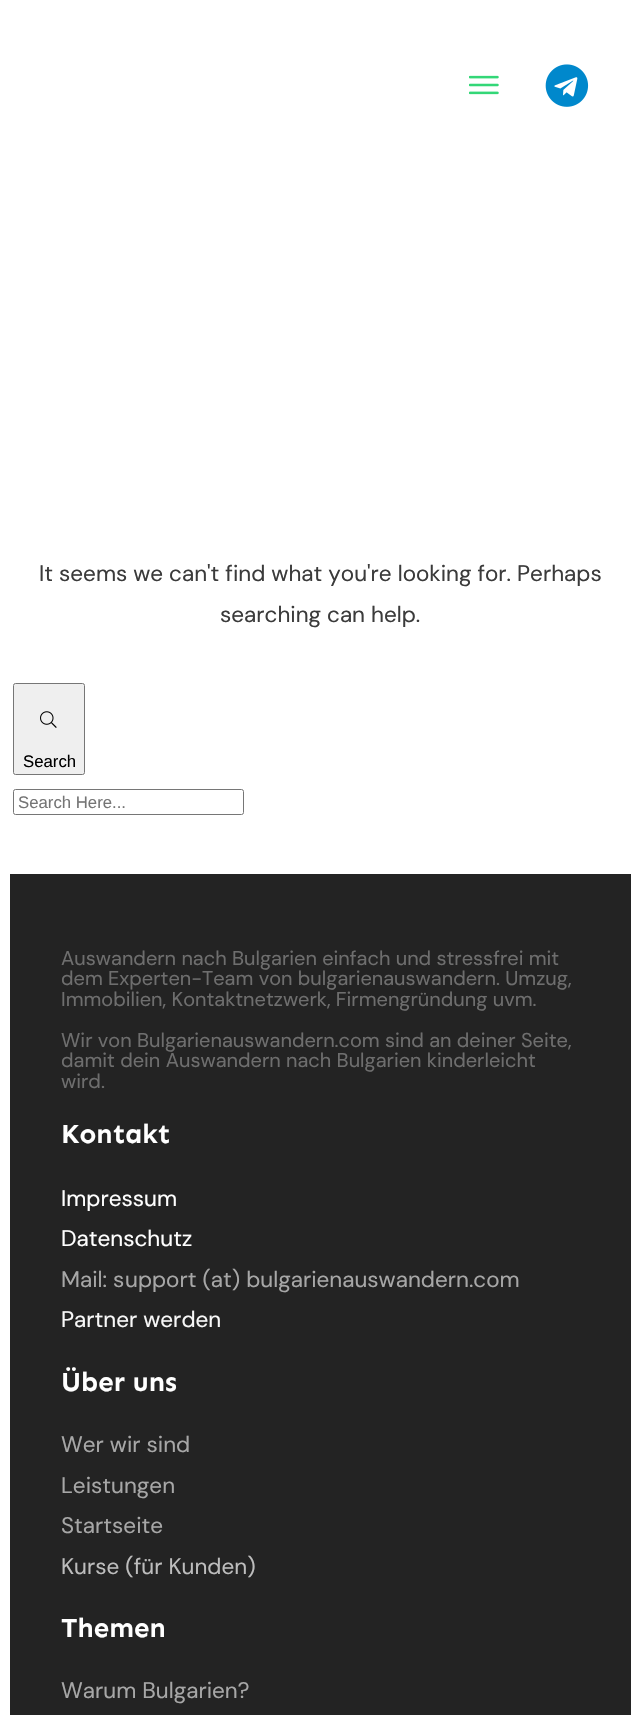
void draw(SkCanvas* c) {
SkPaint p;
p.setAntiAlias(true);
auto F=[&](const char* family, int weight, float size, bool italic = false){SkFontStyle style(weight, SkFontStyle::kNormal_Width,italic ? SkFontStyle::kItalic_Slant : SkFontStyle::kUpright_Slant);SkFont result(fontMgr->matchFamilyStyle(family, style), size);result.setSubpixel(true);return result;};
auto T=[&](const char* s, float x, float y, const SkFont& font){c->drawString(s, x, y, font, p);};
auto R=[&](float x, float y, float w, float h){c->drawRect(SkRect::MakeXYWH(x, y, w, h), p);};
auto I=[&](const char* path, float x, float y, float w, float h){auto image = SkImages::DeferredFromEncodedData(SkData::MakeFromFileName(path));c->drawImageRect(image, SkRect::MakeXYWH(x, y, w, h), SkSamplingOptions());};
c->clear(0xffffffff);
I("1.png",469,75,30,20);
I("2.png",545,64,44,43);
auto f1 = F("DM Sans",400,22.5);
p.setColor(0xff3b3b3b);
T("It seems we can't find what you're looking for. Perhaps",39,581,f1);
T("searching can help.",220,622,f1);
p.setColor(0xffefefef);
c->drawRoundRect(SkRect::MakeXYWH(13.5,683.5,71,91),2,2,p);
p.setStroke(true);
p.setStrokeWidth(1);
p.setColor(0xff767676);
c->drawRoundRect(SkRect::MakeXYWH(13.5,683.5,71,91),2,2,p);
I("3.png",40,711,17,17);
auto f2 = F("Liberation Sans",400,16.75);
p.setStroke(false);
p.setColor(0xff000000);
T("Search",23,767,f2);
p.setStroke(true);
p.setColor(0xff767676);
c->drawRoundRect(SkRect::MakeXYWH(13.5,789.5,230,25),2,2,p);
p.setStroke(false);
p.setColor(0xff757575);
T("Search Here...",18,808,f2);
p.setColor(0xff232323);
R(10,874,621,841);
auto f3 = F("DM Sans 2",400,20);
p.setColor(0xff6e6e6e);
T("Auswandern nach Bulgarien einfach und stressfrei mit",61,965,f3);
T("dem Experten-Team von bulgarienauswandern. Umzug,",61,985,f3);
T("Immobilien, Kontaktnetzwerk, Firmengründung uvm.",61,1006,f3);
T("Wir von Bulgarienauswandern.com sind an deiner Seite,",61,1047,f3);
T("damit dein Auswandern nach Bulgarien kinderleicht",61,1067,f3);
T("wird.",61,1088,f3);
auto f4 = F("Sen",700,27.5);
p.setColor(0xffffffff);
T("Kontakt",61,1143,f4);
T("Impressum",61,1206,f1);
T("Datenschutz",61,1246,f1);
p.setColor(0xffa7a7a7);
T("Mail: s",61,1287,f1);
T("upport (at) bulgarienauswandern.com",125,1287,f1);
p.setColor(0xfff8f8f8);
T("Partner werden",61,1327,f1);
p.setColor(0xffffffff);
T("Über uns",61,1391,f4);
p.setColor(0xffa7a7a7);
T("Wer wir sind",61,1452,f1);
T("Leistungen",61,1493,f1);
T("Startseite",61,1533,f1);
p.setColor(0xffbdbdbd);
T("Kurse (für Kunden)",61,1574,f1);
p.setColor(0xffffffff);
T("Themen",61,1637,f4);
p.setColor(0xffa7a7a7);
T("Warum Bulgarien?",61,1698,f1);
}
